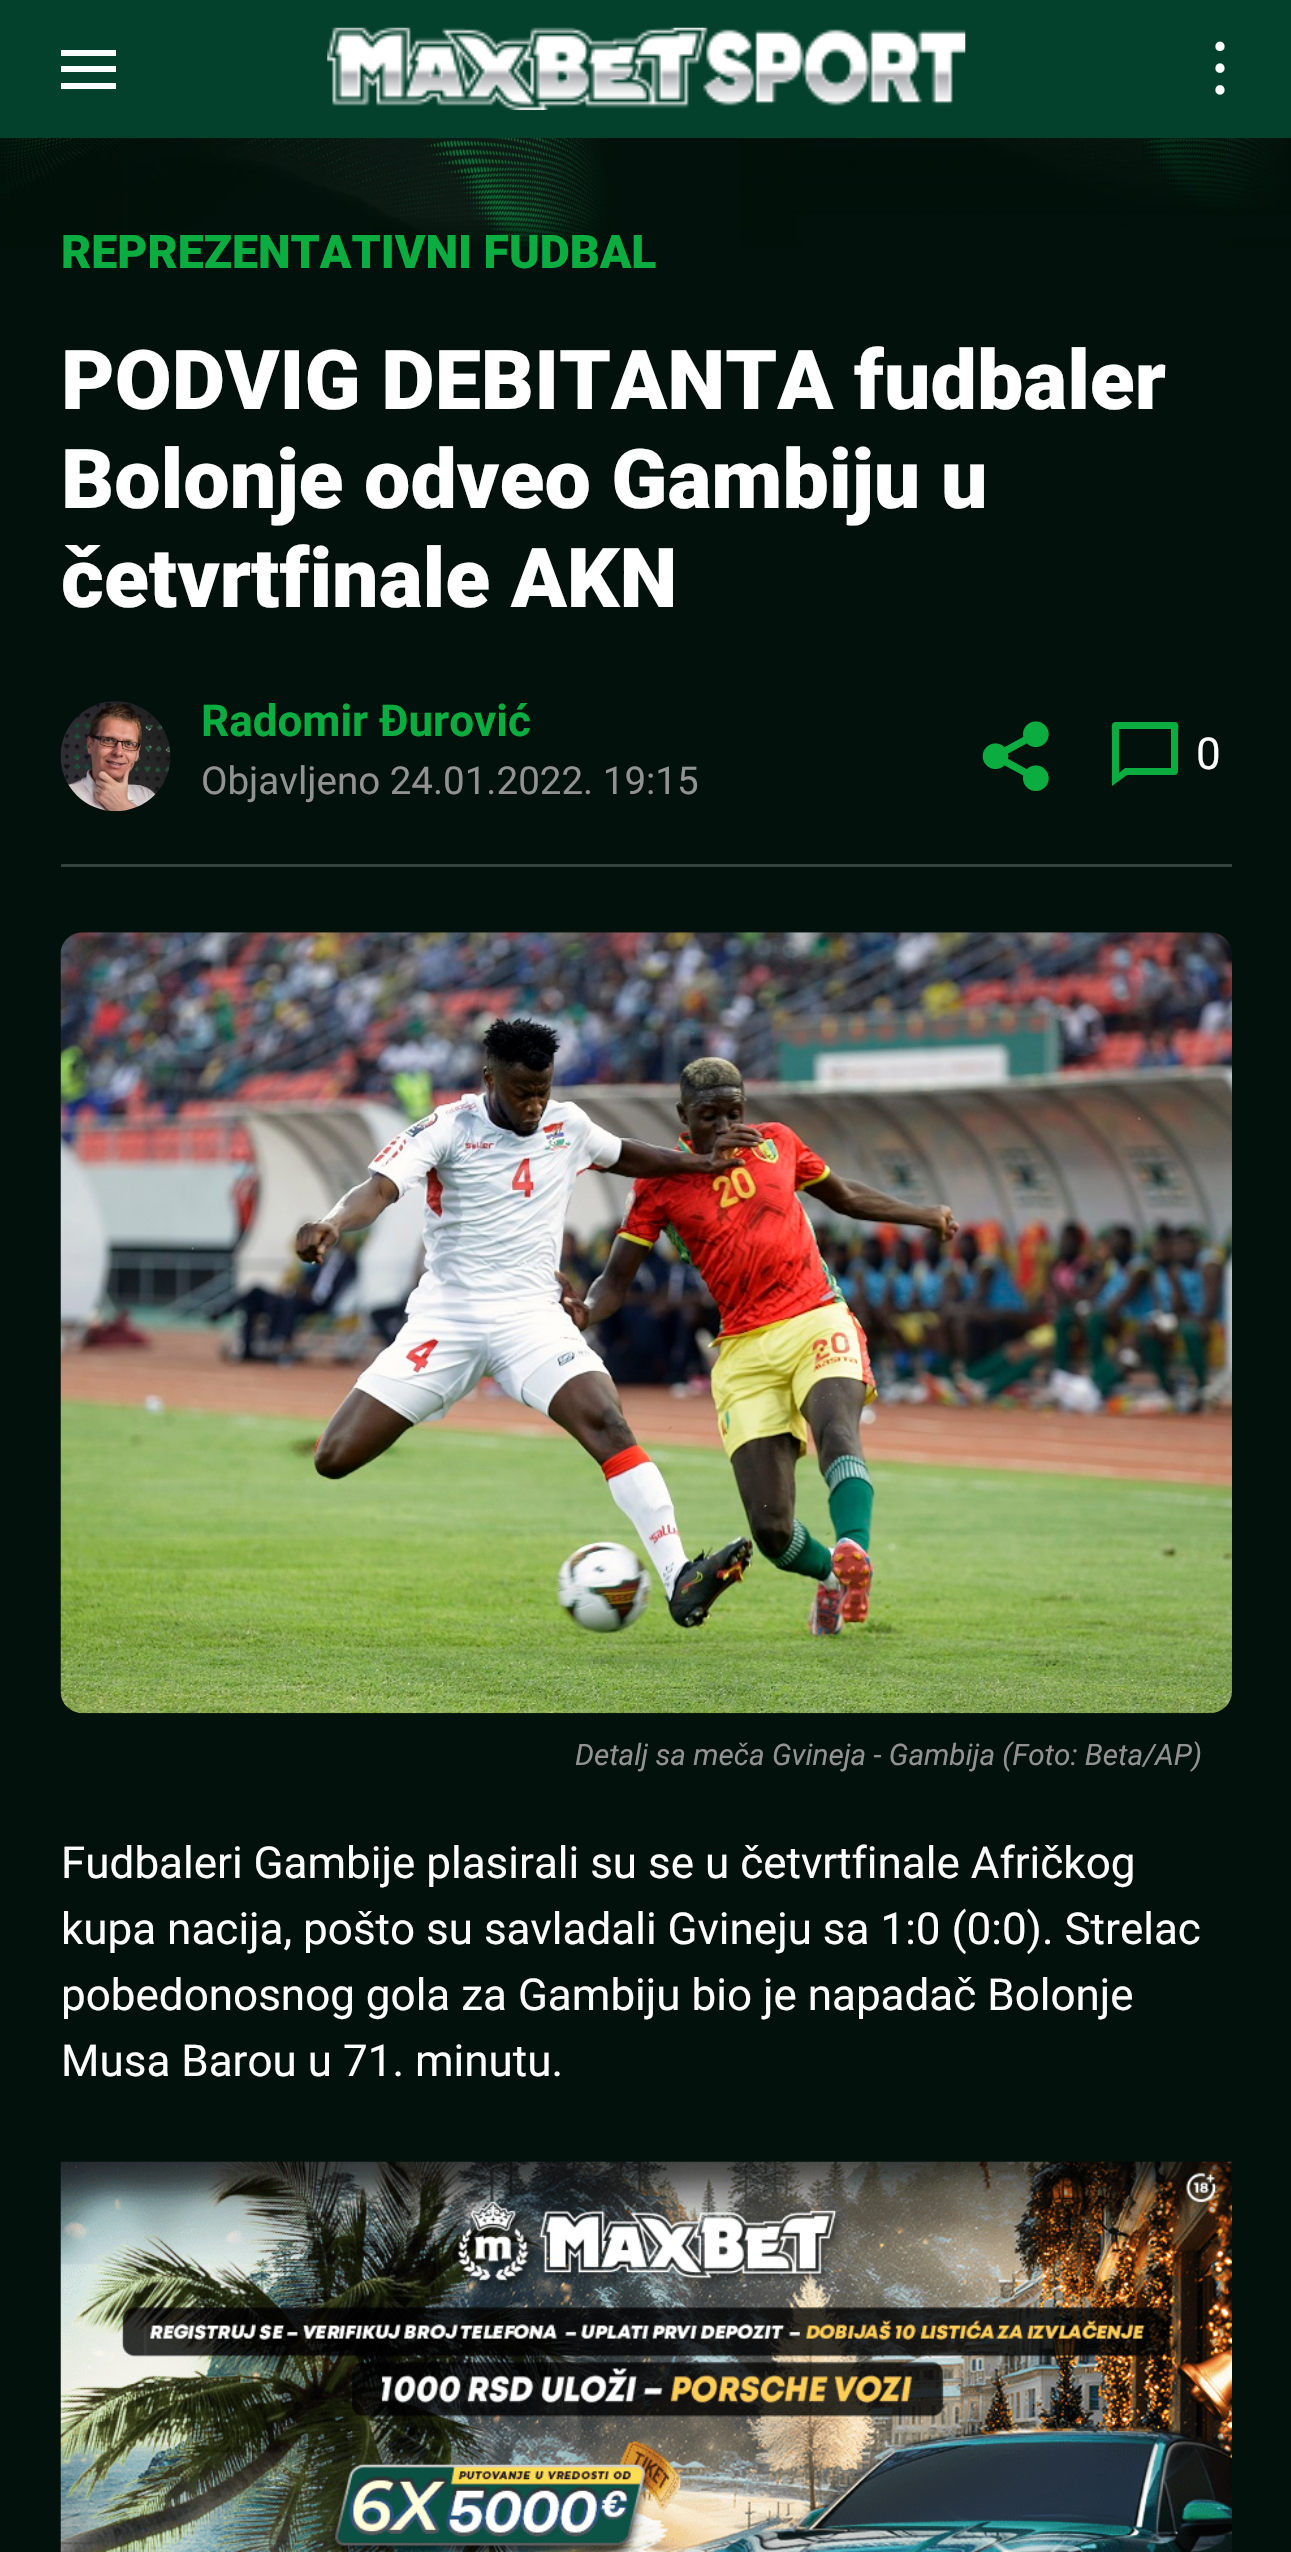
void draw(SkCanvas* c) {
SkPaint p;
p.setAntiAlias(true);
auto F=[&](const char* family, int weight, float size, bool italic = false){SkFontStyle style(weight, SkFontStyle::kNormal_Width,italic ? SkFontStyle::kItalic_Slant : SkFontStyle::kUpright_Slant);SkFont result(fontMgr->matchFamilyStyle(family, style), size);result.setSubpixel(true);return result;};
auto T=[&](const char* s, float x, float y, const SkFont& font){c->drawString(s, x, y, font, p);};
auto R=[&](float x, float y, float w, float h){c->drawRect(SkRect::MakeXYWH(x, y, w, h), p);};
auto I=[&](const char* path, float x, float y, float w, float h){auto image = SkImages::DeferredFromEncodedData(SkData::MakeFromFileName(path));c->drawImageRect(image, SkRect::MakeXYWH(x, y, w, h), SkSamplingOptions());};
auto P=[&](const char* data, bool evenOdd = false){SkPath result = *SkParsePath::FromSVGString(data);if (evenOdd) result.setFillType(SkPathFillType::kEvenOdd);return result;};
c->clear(0xff02110b);
I("1.png",0,138,1291,109);
p.setColor(0xff04412d);
R(0,0,1291,138);
p.setColor(0xffffffff);
R(61,50,55,6);
R(61,66,55,6);
R(61,83,55,6);
I("2.png",327,27,639,83);
auto f1 = F("Roboto",400,82.5);
c->save();
c->rotate(90,1216,36);
T("...",1216,36,f1);
c->restore();
p.setColor(0xff35413c);
R(61,864,1171,3);
auto f2 = F("Roboto",900,46.4);
p.setColor(0xff0bad40);
T("REPREZENTATIVNI FUDBAL",61,268,f2);
auto f3 = F("Roboto",900,82.5);
p.setColor(0xffffffff);
T("PODVIG DEBITANTA fudbaler",61,409,f3);
T("Bolonje odveo Gambiju u",61,508,f3);
T("četvrtfinale AKN",61,607,f3);
I("3.png",60,701,111,111);
auto f4 = F("Roboto",700,44);
p.setColor(0xff0bad40);
T("Radomir Đurović",201,736,f4);
auto f5 = F("Roboto",400,38.5);
p.setColor(0xff929292);
T("Objavljeno 24.01.2022. 19:15",201,794,f5);
I("4.png",982,721,67,71);
p.setColor(0xff0bad40);
c->drawPath(P("M1125 768h46v-39h-52v44zm2 7l-15 11v-50c0-16-2-14 13-14h50c5 0 3 9 3 11v31c0 12 1 11-11 11z"),p);
auto f6 = F("Roboto",400,44);
p.setColor(0xffffffff);
T("0",1196,769,f6);
I("5.png",60,932,1172,782);
auto f7 = F("Roboto",400,29.7,true);
p.setColor(0xff929292);
T("Detalj sa meča Gvineja - Gambija (Foto: Beta/AP)",575,1765,f7);
p.setColor(0xffffffff);
T("Fudbaleri Gambije plasirali su se u četvrtfinale Afričkog",61,1878,f6);
T("kupa nacija, pošto su savladali Gvineju sa 1:0 (0:0). Strelac",61,1944,f6);
T("pobedonosnog gola za Gambiju bio je napadač Bolonje",61,2010,f6);
T("Musa Barou u 71. minutu.",61,2076,f6);
I("6.png",60,2161,1172,391);
}
